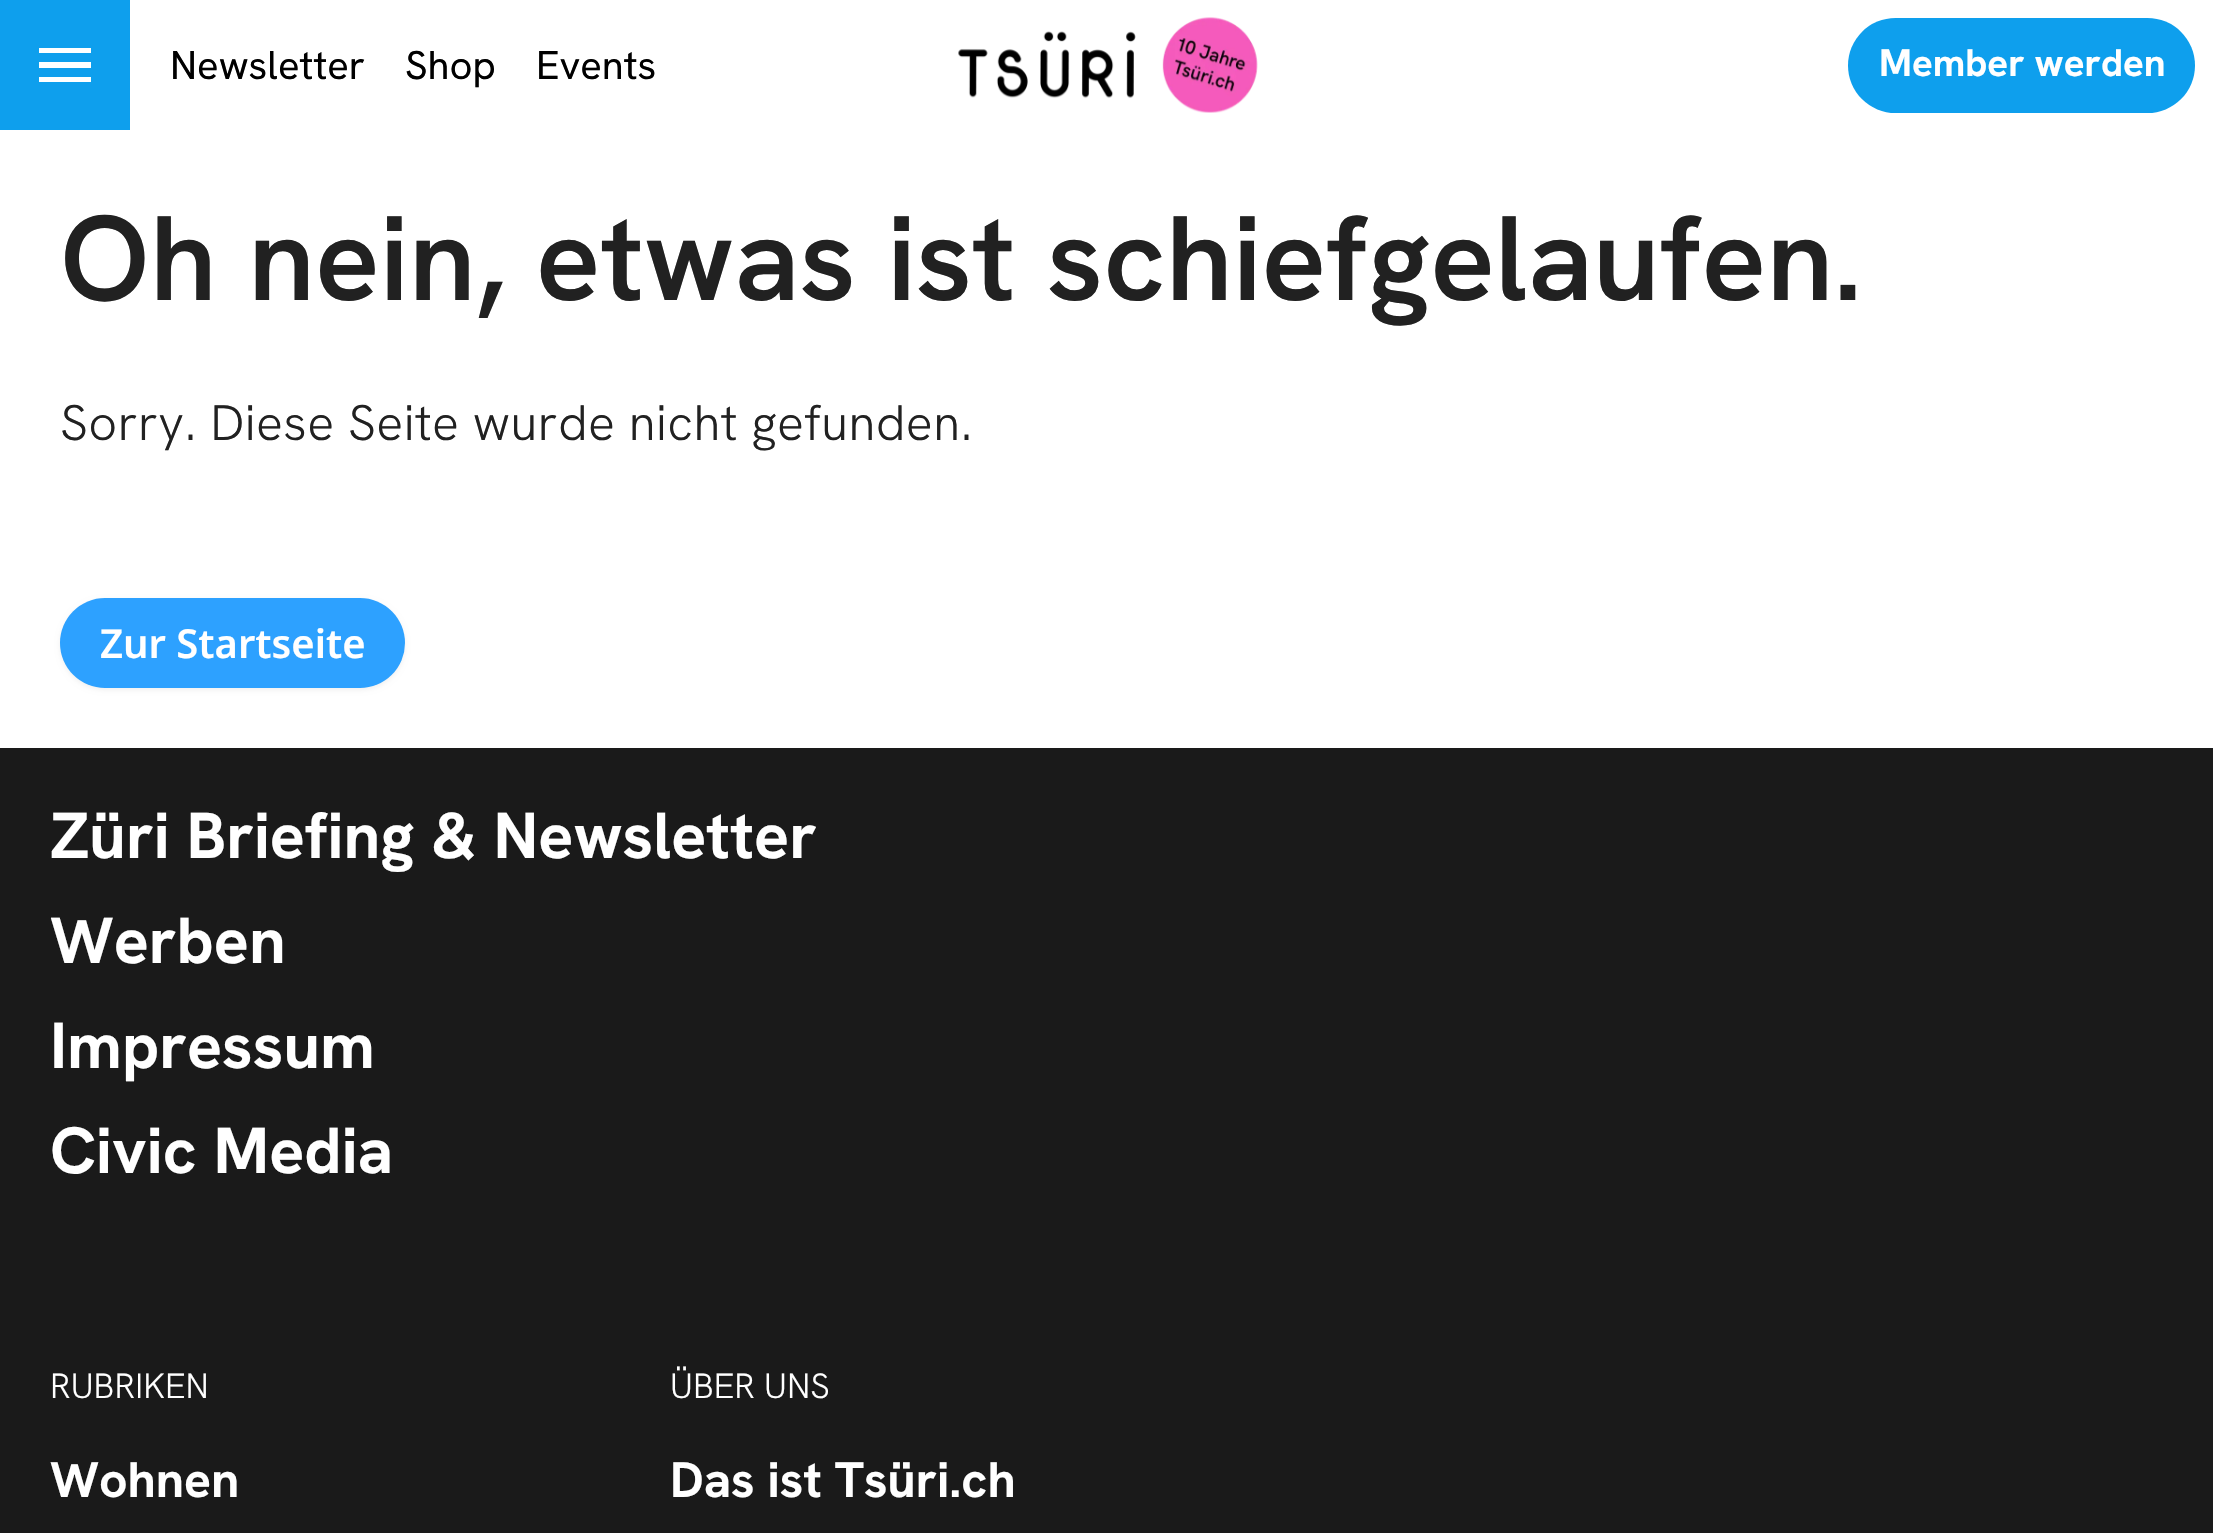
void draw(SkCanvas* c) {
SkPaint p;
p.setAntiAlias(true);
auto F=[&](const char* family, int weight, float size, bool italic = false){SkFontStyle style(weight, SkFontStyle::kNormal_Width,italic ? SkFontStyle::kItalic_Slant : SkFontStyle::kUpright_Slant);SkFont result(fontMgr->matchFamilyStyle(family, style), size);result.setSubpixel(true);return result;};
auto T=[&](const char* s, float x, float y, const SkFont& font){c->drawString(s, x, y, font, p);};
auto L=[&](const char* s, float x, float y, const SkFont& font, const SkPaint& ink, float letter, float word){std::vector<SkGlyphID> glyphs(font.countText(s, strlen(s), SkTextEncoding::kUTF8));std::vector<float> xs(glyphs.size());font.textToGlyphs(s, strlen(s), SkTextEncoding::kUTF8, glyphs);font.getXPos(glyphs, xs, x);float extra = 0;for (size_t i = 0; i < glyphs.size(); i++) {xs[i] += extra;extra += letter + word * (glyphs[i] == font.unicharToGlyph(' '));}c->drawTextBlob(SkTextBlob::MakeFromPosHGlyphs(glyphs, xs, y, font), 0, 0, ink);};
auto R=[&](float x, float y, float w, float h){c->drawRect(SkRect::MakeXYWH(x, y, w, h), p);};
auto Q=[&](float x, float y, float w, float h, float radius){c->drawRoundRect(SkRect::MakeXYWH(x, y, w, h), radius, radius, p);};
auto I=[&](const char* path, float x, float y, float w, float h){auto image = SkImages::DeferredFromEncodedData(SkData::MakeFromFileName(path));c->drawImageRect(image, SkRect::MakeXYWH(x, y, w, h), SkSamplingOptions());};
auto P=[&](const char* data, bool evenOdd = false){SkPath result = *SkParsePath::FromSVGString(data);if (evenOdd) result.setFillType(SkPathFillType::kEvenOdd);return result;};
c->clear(0xffffffff);
p.setColor(0xff0e9fed);
R(0,0,130,130);
p.setColor(0xffffffff);
c->drawPath(P("M39 82h52v-5h-52zm0-14h52v-6h-52zm0-20v5h52v-5z"),p);
auto f1 = F("Hanken Grotesk",400,40);
p.setColor(0xff000000);
T("Newsletter",170,79,f1);
T("Shop",405,79,f1);
T("Events",536,79,f1);
I("1.png",958,17,300,96);
p.setColor(0xff0e9fed);
Q(1848,18,347,95,47.5);
auto f2 = F("Hanken Grotesk",700,38.5);
p.setColor(0xffffffff);
T("Member werden",1879,76,f2);
auto f3 = F("Hanken Grotesk",600,120);
p.setColor(0xff212121);
T("Oh nein, etwas ist schiefgelaufen.",60,300,f3);
auto f4 = F("Hanken Grotesk",300,50);
L("Sorry. Diese Seite wurde nicht gefunden.",60,440,f4,p,.4,0);
p.setColor(0x0f000000);
p.setMaskFilter(SkMaskFilter::MakeBlur(kNormal_SkBlurStyle, 2.5));
c->drawRoundRect(SkRect::MakeXYWH(60,600,345,90),45,45,p);
p.setMaskFilter(nullptr);
p.setColor(0xff2da1ff);
Q(60,598,345,90,45);
auto f5 = F("Noto Sans",600,40);
p.setColor(0xffffffff);
T("Zur Startseite",100,658,f5);
p.setColor(0xff1a1a1a);
R(0,748,2213,785);
auto f6 = F("Hanken Grotesk",700,65);
p.setColor(0xffffffff);
T("Züri Briefing & Newsletter",50,858,f6);
T("Werben",50,963,f6);
T("Impressum",50,1068,f6);
T("Civic Media",50,1173,f6);
auto f7 = F("Hanken Grotesk",300,35);
T("RUBRIKEN",50,1398,f7);
auto f8 = F("Hanken Grotesk",700,50);
T("Wohnen",50,1497,f8);
T("ÜBER UNS",670,1398,f7);
T("Das ist Tsüri.ch",670,1497,f8);
}
